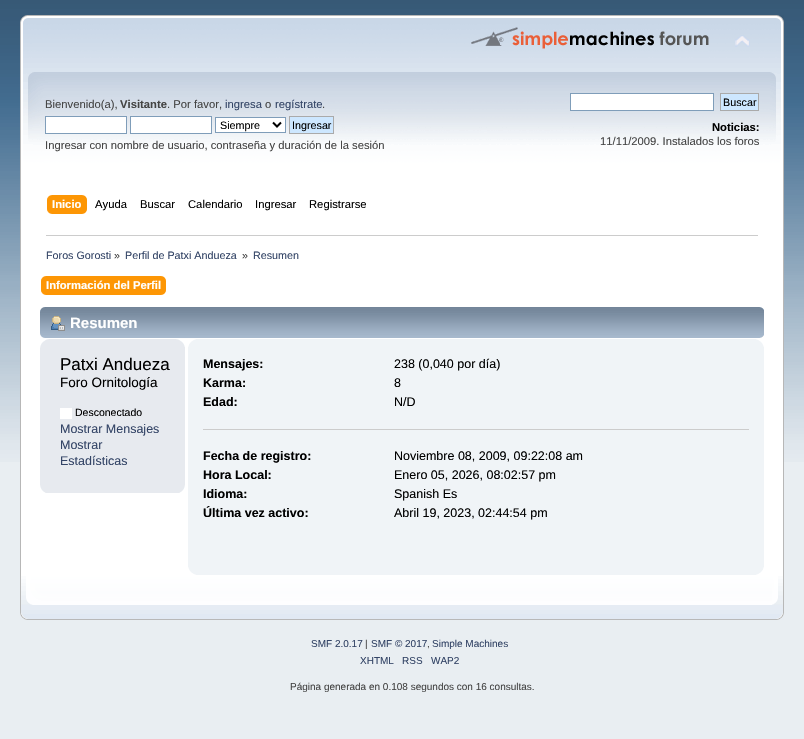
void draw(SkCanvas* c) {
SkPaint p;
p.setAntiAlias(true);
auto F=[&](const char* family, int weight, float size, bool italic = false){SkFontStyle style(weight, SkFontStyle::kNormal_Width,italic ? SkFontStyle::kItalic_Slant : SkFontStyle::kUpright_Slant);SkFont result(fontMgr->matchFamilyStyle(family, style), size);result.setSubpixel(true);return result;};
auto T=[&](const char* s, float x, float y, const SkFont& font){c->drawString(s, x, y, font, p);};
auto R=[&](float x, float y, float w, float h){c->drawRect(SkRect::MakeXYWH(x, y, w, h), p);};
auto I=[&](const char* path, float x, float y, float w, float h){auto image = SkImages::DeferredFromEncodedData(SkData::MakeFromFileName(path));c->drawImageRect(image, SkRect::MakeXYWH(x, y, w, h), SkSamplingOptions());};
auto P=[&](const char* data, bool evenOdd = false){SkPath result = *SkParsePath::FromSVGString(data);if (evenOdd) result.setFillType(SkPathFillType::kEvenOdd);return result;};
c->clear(0xffe9eef2);
I("1.png",0,0,804,462);
I("2.png",20,15,750,214);
I("3.png",770,15,14,214);
I("4.png",471,27,238,22);
I("5.png",735,35,15,12);
auto f1 = F("Liberation Sans",400,11.25);
p.setColor(0xff444444);
T("Bienvenido(a),",45,108,f1);
auto f2 = F("Liberation Sans",700,11.25);
T("Visitante",120,108,f2);
T(". Por favor,",167,108,f1);
p.setColor(0xff334466);
T("ingresa",225,108,f1);
p.setColor(0xff444444);
T("o",265,108,f1);
p.setColor(0xff334466);
T("regístrate",275,108,f1);
p.setColor(0xff444444);
T(".",322,108,f1);
p.setColor(0xffffffff);
c->drawRect(SkRect::MakeXYWH(45.5,116.5,81,17),p);
p.setStroke(true);
p.setStrokeWidth(1);
p.setColor(0xff7f9db9);
c->drawRect(SkRect::MakeXYWH(45.5,116.5,81,17),p);
p.setStroke(false);
p.setColor(0xffffffff);
c->drawRect(SkRect::MakeXYWH(130.5,116.5,81,17),p);
p.setStroke(true);
p.setColor(0xff7f9db9);
c->drawRect(SkRect::MakeXYWH(130.5,116.5,81,17),p);
p.setStroke(false);
p.setColor(0xffffffff);
c->drawRect(SkRect::MakeXYWH(215.5,117.5,70,15),p);
p.setStroke(true);
p.setColor(0xff7f9db9);
c->drawRect(SkRect::MakeXYWH(215.5,117.5,70,15),p);
p.setStrokeWidth(2);
p.setColor(0xff000000);
c->drawPath(P("M273 122.5l4 4l4-4"),p);
auto f3 = F("Liberation Sans",400,10.75);
p.setStroke(false);
T("Siempre",220,129,f3);
p.setColor(0xffcde7ff);
c->drawRect(SkRect::MakeXYWH(289.5,116.5,44,17),p);
p.setStroke(true);
p.setStrokeWidth(1);
p.setColor(0xffaaaaaa);
c->drawRect(SkRect::MakeXYWH(289.5,116.5,44,17),p);
p.setStroke(false);
p.setColor(0xff000000);
T("Ingresar",292,129,f3);
p.setColor(0xff444444);
T("Ingresar con nombre de usuario, contraseña y duración de la sesión",45,149,f1);
p.setColor(0xffffffff);
c->drawRect(SkRect::MakeXYWH(570.5,93.5,143,17),p);
p.setStroke(true);
p.setColor(0xff7f9db9);
c->drawRect(SkRect::MakeXYWH(570.5,93.5,143,17),p);
p.setStroke(false);
p.setColor(0xffcde7ff);
c->drawRect(SkRect::MakeXYWH(720.5,93.5,38,17),p);
p.setStroke(true);
p.setColor(0xffaaaaaa);
c->drawRect(SkRect::MakeXYWH(720.5,93.5,38,17),p);
p.setStroke(false);
p.setColor(0xff000000);
T("Buscar",723,106,f3);
T("Noticias:",712,131,f2);
p.setColor(0xff444444);
T("11/11/2009. Instalados los foros",600,145,f1);
I("6.png",52,195,35,19);
I("7.png",47,195,5,19);
p.setColor(0xffffffff);
T("Inicio",52,208,f2);
p.setColor(0xff000000);
T("Ayuda",95,208,f1);
T("Buscar",140,208,f1);
T("Calendario",188,208,f1);
T("Ingresar",255,208,f1);
T("Registrarse",309,208,f1);
p.setColor(0xffffffff);
R(21,229,762,347);
p.setColor(0xffb7b7b7);
R(20,229,1,347);
R(783,229,1,347);
p.setColor(0xffcccccc);
R(46,235,712,1);
p.setColor(0xff334466);
T("Foros Gorosti",46,259,f3);
p.setColor(0xff444444);
T("»",114,259,f3);
p.setColor(0xff334466);
T("Perfil de Patxi Andueza",125,259,f3);
p.setColor(0xff444444);
T("»",242,259,f3);
p.setColor(0xff334466);
T("Resumen",253,259,f3);
I("8.png",46,276,120,19);
I("9.png",41,276,5,19);
p.setColor(0xffffffff);
T("Información del Perfil",46,289,f2);
I("10.png",40,307,719,31);
I("11.png",759,307,5,31);
I("12.png",51,316,14,15);
auto f4 = F("Liberation Sans",700,15);
T("Resumen",70,328,f4);
p.setColor(0xffe7eaef);
R(40,339,145,154);
I("13.png",40,339,9,9);
I("14.png",176,339,9,8);
auto f5 = F("Liberation Sans",400,17);
p.setColor(0xff000000);
T("Patxi Andueza",60,370,f5);
auto f6 = F("Liberation Sans",400,13.5);
T("Foro Ornitología",60,387,f6);
p.setColor(0xffffffff);
R(60,408,12,11);
auto f7 = F("Liberation Sans",400,10.5);
p.setColor(0xff000000);
T("Desconectado",75,416,f7);
auto f8 = F("Liberation Sans",400,12.5);
p.setColor(0xff334466);
T("Mostrar Mensajes",60,433,f8);
T("Mostrar",60,449,f8);
T("Estadísticas",60,465,f8);
I("15.png",40,485,6,8);
I("16.png",179,485,6,8);
p.setColor(0xfff0f4f7);
R(188,339,576,236);
I("17.png",188,339,8,8);
I("18.png",756,339,8,8);
p.setColor(0xffcccccc);
R(203,429,546,1);
auto f9 = F("Liberation Sans",700,12.5);
p.setColor(0xff000000);
T("Mensajes:",203,368,f9);
T("238 (0,040 por día)",394,368,f8);
T("Karma:",203,387,f9);
T("8",394,387,f8);
T("Edad:",203,406,f9);
T("N/D",394,406,f8);
T("Fecha de registro:",203,460,f9);
T("Noviembre 08, 2009, 09:22:08 am",394,460,f8);
T("Hora Local:",203,479,f9);
T("Enero 05, 2026, 08:02:57 pm",394,479,f8);
T("Idioma:",203,498,f9);
T("Spanish Es",394,498,f8);
T("Última vez activo:",203,517,f9);
T("Abril 19, 2023, 02:44:54 pm",394,517,f8);
I("19.png",188,567,8,8);
I("20.png",756,567,8,8);
I("21.png",20,576,752,44);
I("22.png",772,576,12,44);
auto f10 = F("Liberation Sans",400,10);
p.setColor(0xff334466);
T("SMF 2.0.17",311,647,f10);
p.setColor(0xff444444);
T("|",365,647,f10);
p.setColor(0xff334466);
T("SMF © 2017",371,647,f10);
p.setColor(0xff444444);
T(",",427,647,f10);
p.setColor(0xff334466);
T("Simple Machines",432,647,f10);
T("XHTML",360,664,f10);
T("RSS",402,664,f10);
T("WAP2",431,664,f10);
p.setColor(0xff444444);
T("Página generada en 0.108 segundos con 16 consultas.",290,690,f10);
}
